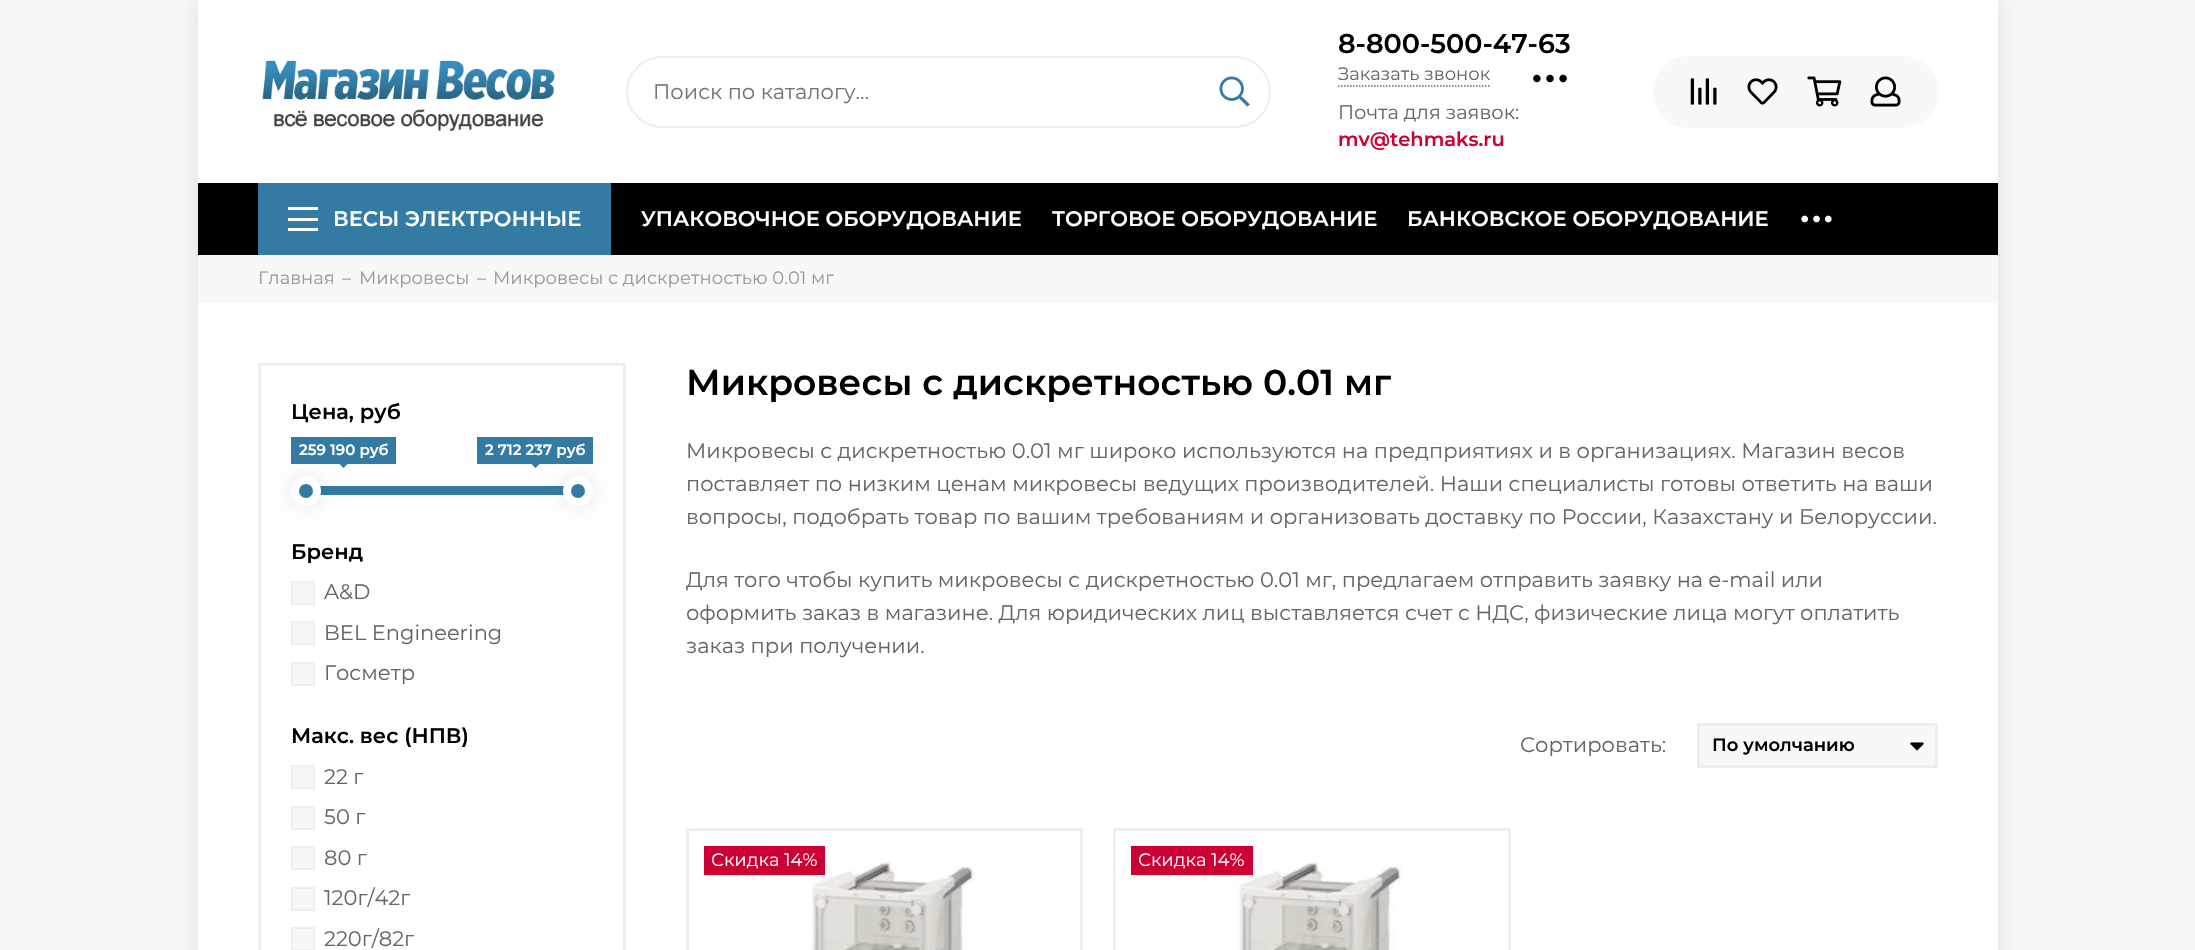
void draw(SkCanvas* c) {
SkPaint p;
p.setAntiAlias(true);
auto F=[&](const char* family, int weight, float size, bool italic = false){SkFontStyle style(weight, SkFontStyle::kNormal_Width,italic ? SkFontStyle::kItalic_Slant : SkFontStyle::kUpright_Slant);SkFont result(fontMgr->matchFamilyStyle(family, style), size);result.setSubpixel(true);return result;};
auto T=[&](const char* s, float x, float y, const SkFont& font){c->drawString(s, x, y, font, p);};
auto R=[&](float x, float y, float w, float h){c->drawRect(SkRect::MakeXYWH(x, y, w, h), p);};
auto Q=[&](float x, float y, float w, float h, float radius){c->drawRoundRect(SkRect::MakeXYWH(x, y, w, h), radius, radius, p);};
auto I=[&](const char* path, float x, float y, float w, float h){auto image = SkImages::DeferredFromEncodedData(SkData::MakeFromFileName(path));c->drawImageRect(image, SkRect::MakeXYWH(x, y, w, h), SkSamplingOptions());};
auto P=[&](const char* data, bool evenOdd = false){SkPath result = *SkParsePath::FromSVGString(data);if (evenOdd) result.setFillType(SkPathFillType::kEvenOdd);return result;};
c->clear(0xfff7f8fa);
p.setColor(0x1a000000);
p.setMaskFilter(SkMaskFilter::MakeBlur(kNormal_SkBlurStyle, 11));
c->drawRect(SkRect::MakeXYWH(198,0,1800,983),p);
p.setMaskFilter(nullptr);
p.setColor(0xffffffff);
R(198,0,1800,950);
I("1.png",262,60,293,72);
p.setStroke(true);
p.setStrokeWidth(2);
p.setColor(0xffeeeeee);
c->drawRoundRect(SkRect::MakeXYWH(627,57,643,70),35,35,p);
auto f1 = F("Montserrat",400,21);
p.setStroke(false);
p.setColor(0xff757575);
T("Поиск по каталогу…",653,99,f1);
I("2.png",1219,76,31,31);
auto f2 = F("Montserrat",600,27);
p.setColor(0xff000000);
T("8-800-500-47-63",1338,53,f2);
p.setStroke(true);
p.setStrokeWidth(1.5);
p.setColor(0xff666666);
p.setPathEffect(SkDashPathEffect::Make({{1.5f,1.5f}}, 0));
c->drawPath(P("M1338 86h151.5"),p);
p.setPathEffect(nullptr);
auto f3 = F("Montserrat",400,18);
p.setStroke(false);
T("Заказать звонок",1338,80,f3);
I("3.png",1533,74,34,9);
auto f4 = F("Montserrat",400,19.5);
T("Почта для заявок:",1338,119,f4);
auto f5 = F("Montserrat",600,19.5);
p.setColor(0xffcc0033);
T("mv@tehmaks.ru",1338,146,f5);
p.setColor(0xfff7f8fa);
Q(1653,56,285,72,36);
I("4.png",1690,78,27,27);
I("5.png",1747,78,31,27);
I("6.png",1807,76,35,31);
I("7.png",1870,76,31,31);
p.setColor(0xff000000);
R(198,183,1800,72);
p.setColor(0xff347ba3);
R(258,183,353,72);
p.setColor(0xffffffff);
R(288,207,30,3);
R(288,218,30,3);
R(288,228,30,3);
auto f6 = F("Montserrat",600,21);
T("ВЕСЫ ЭЛЕКТРОННЫЕ",333,226,f6);
T("УПАКОВОЧНОЕ ОБОРУДОВАНИЕ",641,226,f6);
T("ТОРГОВОЕ ОБОРУДОВАНИЕ",1052,226,f6);
T("БАНКОВСКОЕ ОБОРУДОВАНИЕ",1407,226,f6);
I("8.png",1801,215,31,8);
p.setColor(0xfff7f8fa);
R(198,255,1800,48);
p.setColor(0xff999999);
T("Главная",258,284,f3);
T("–",342,284,f3);
T("Микровесы",359,284,f3);
T("–",477,284,f3);
T("Микровесы с дискретностью 0.01 мг",493,284,f3);
p.setStroke(true);
p.setStrokeWidth(3);
p.setColor(0xffeeeeee);
c->drawRect(SkRect::MakeXYWH(259.5,364.5,365,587),p);
p.setStroke(false);
p.setColor(0xff000000);
T("Цена, руб",291,419,f6);
p.setColor(0xff347ba3);
R(291,437,105,27);
c->drawPath(P("M339 463.5h9l-4.5 4.5z"),p);
R(320,486,244,9);
p.setColor(0x1a000000);
p.setMaskFilter(SkMaskFilter::MakeBlur(kNormal_SkBlurStyle, 11));
c->drawRoundRect(SkRect::MakeXYWH(291,476,30,30),15,15,p);
p.setMaskFilter(nullptr);
p.setColor(0xff347ba3);
c->drawCircle(306,491,11,p);
p.setStroke(true);
p.setStrokeWidth(8);
p.setColor(0xffffffff);
c->drawCircle(306,491,11,p);
p.setStroke(false);
p.setColor(0xff347ba3);
R(477,437,116,27);
c->drawPath(P("M531 463.5h9l-4.5 4.5z"),p);
p.setColor(0x1a000000);
p.setMaskFilter(SkMaskFilter::MakeBlur(kNormal_SkBlurStyle, 11));
c->drawRoundRect(SkRect::MakeXYWH(563,476,30,30),15,15,p);
p.setMaskFilter(nullptr);
p.setColor(0xff347ba3);
c->drawCircle(578,491,11,p);
p.setStroke(true);
p.setColor(0xffffffff);
c->drawCircle(578,491,11,p);
auto f7 = F("Montserrat",600,15);
p.setStroke(false);
T("259 190 руб",299,455,f7);
T("2 712 237 руб",485,455,f7);
p.setColor(0xff000000);
T("Бренд",291,559,f6);
p.setColor(0xfff7f8fa);
c->drawRect(SkRect::MakeXYWH(292,582,22,22),p);
p.setStroke(true);
p.setStrokeWidth(2);
p.setColor(0xffeeeeee);
c->drawRect(SkRect::MakeXYWH(292,582,22,22),p);
p.setStroke(false);
p.setColor(0xff666666);
T("A&D",324,599,f1);
p.setColor(0xfff7f8fa);
c->drawRect(SkRect::MakeXYWH(292,622,22,22),p);
p.setStroke(true);
p.setColor(0xffeeeeee);
c->drawRect(SkRect::MakeXYWH(292,622,22,22),p);
p.setStroke(false);
p.setColor(0xff666666);
T("BEL Engineering",324,640,f1);
p.setColor(0xfff7f8fa);
c->drawRect(SkRect::MakeXYWH(292,663,22,22),p);
p.setStroke(true);
p.setColor(0xffeeeeee);
c->drawRect(SkRect::MakeXYWH(292,663,22,22),p);
p.setStroke(false);
p.setColor(0xff666666);
T("Госметр",324,680,f1);
p.setColor(0xff000000);
T("Макс. вес (НПВ)",291,743,f6);
p.setColor(0xfff7f8fa);
c->drawRect(SkRect::MakeXYWH(292,766,22,22),p);
p.setStroke(true);
p.setColor(0xffeeeeee);
c->drawRect(SkRect::MakeXYWH(292,766,22,22),p);
p.setStroke(false);
p.setColor(0xff666666);
T("22 г",324,784,f1);
p.setColor(0xfff7f8fa);
c->drawRect(SkRect::MakeXYWH(292,807,22,22),p);
p.setStroke(true);
p.setColor(0xffeeeeee);
c->drawRect(SkRect::MakeXYWH(292,807,22,22),p);
p.setStroke(false);
p.setColor(0xff666666);
T("50 г",324,824,f1);
p.setColor(0xfff7f8fa);
c->drawRect(SkRect::MakeXYWH(292,847,22,22),p);
p.setStroke(true);
p.setColor(0xffeeeeee);
c->drawRect(SkRect::MakeXYWH(292,847,22,22),p);
p.setStroke(false);
p.setColor(0xff666666);
T("80 г",324,865,f1);
p.setColor(0xfff7f8fa);
c->drawRect(SkRect::MakeXYWH(292,888,22,22),p);
p.setStroke(true);
p.setColor(0xffeeeeee);
c->drawRect(SkRect::MakeXYWH(292,888,22,22),p);
p.setStroke(false);
p.setColor(0xff666666);
T("120г/42г",324,905,f1);
p.setColor(0xfff7f8fa);
c->drawRect(SkRect::MakeXYWH(292,928,22,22),p);
p.setStroke(true);
p.setColor(0xffeeeeee);
c->drawRect(SkRect::MakeXYWH(292,928,22,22),p);
p.setStroke(false);
p.setColor(0xff666666);
T("220г/82г",324,946,f1);
auto f8 = F("Montserrat",600,36);
p.setColor(0xff000000);
T("Микровесы с дискретностью 0.01 мг",686,395,f8);
p.setColor(0xff666666);
T("Микровесы с дискретностью 0.01 мг широко используются на предприятиях и в организациях. Магазин весов",686,458,f1);
T("поставляет по низким ценам микровесы ведущих производителей. Наши специалисты готовы ответить на ваши",686,491,f1);
T("вопросы, подобрать товар по вашим требованиям и организовать доставку по России, Казахстану и Белоруссии.",686,524,f1);
T("Для того чтобы купить микровесы с дискретностью 0.01 мг, предлагаем отправить заявку на e-mail или",686,587,f1);
T("оформить заказ в магазине. Для юридических лиц выставляется счет с НДС, физические лица могут оплатить",686,620,f1);
T("заказ при получении.",686,653,f1);
T("Сортировать:",1520,752,f1);
p.setColor(0xfff7f8fa);
R(1700,726,235,39);
I("9.png",1910,742,14,9);
p.setStroke(true);
p.setStrokeWidth(3);
p.setColor(0xffeeeeee);
c->drawRect(SkRect::MakeXYWH(1698.5,724.5,238,42),p);
auto f9 = F("Montserrat",600,18);
p.setStroke(false);
p.setColor(0xff000000);
T("По умолчанию",1712,751,f9);
p.setStroke(true);
p.setColor(0xffeeeeee);
c->drawRect(SkRect::MakeXYWH(687.5,829.5,394,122),p);
I("10.png",812,862,163,88);
p.setStroke(false);
p.setColor(0xffcc0033);
R(704,846,121,29);
p.setColor(0xffffffff);
T("Скидка 14%",711,866,f3);
p.setStroke(true);
p.setColor(0xffeeeeee);
c->drawRect(SkRect::MakeXYWH(1114.5,829.5,395,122),p);
I("11.png",1239,862,163,88);
p.setStroke(false);
p.setColor(0xffcc0033);
R(1131,846,122,29);
p.setColor(0xffffffff);
T("Скидка 14%",1138,866,f3);
}
